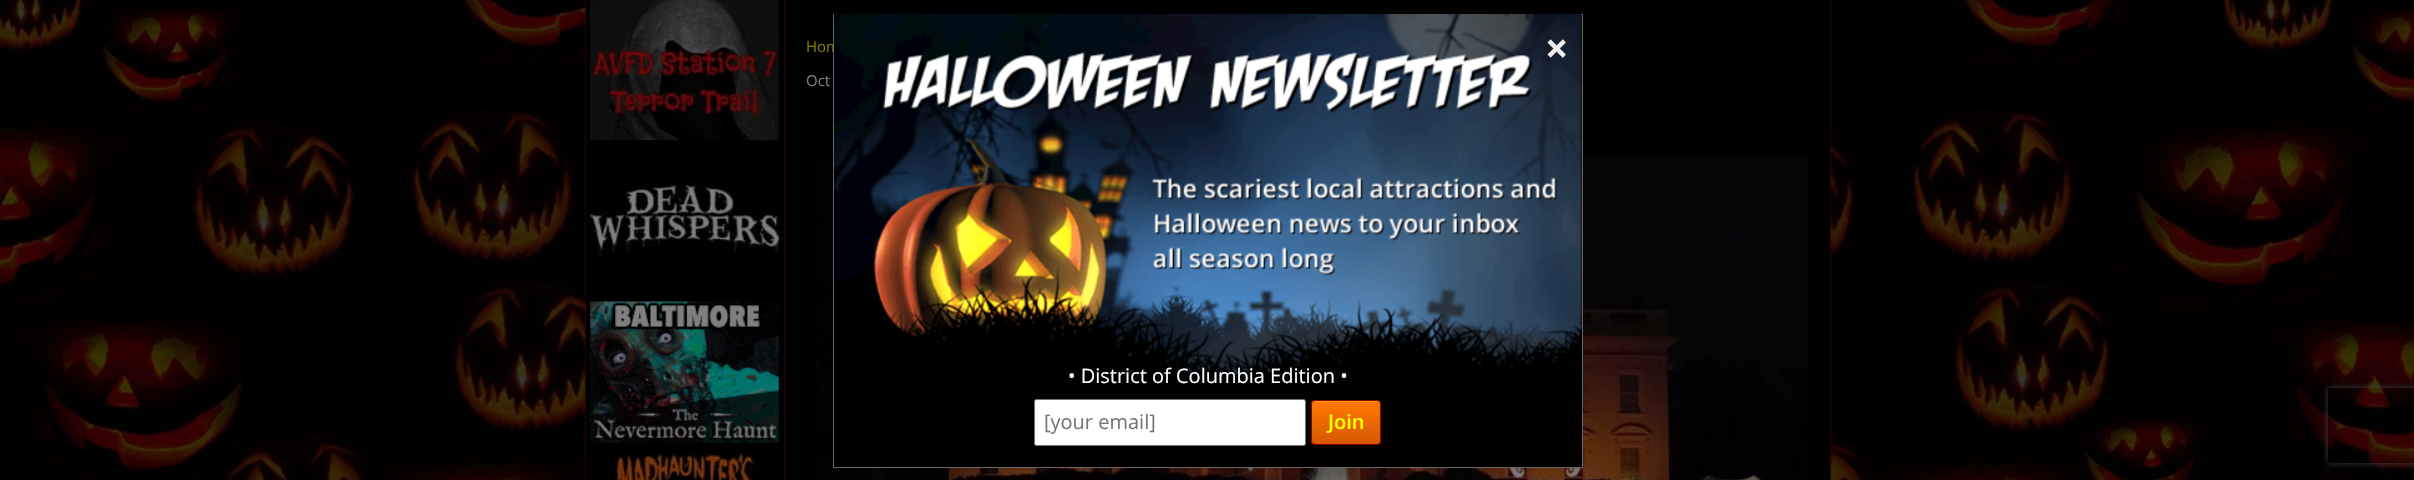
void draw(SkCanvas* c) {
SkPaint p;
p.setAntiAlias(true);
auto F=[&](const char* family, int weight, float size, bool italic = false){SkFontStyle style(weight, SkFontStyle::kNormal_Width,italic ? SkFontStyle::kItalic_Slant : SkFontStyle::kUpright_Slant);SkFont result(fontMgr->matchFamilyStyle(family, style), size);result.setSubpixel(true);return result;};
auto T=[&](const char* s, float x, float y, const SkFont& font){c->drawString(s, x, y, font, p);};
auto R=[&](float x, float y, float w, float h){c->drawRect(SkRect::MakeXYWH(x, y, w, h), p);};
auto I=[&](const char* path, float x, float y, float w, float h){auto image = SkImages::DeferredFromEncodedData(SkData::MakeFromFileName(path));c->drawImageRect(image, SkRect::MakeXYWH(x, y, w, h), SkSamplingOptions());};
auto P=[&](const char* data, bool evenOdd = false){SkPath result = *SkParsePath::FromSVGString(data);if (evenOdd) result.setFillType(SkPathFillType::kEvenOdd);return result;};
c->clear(0xffffffff);
I("1.png",0,0,2414,480);
p.setColor(0xff000000);
R(586,0,1244,480);
p.setColor(0xff260404);
R(1830,0,1,480);
R(585,0,1,480);
R(784,0,1,480);
I("2.png",590,0,189,141);
I("3.png",590,180,189,79);
I("4.png",590,301,189,142);
I("5.png",610,452,151,28);
auto f1 = F("Open Sans",400,15);
p.setColor(0xff808000);
T("Hom",806,52,f1);
p.setColor(0xff808080);
T("Oct",806,86,f1);
I("6.png",815,156,993,324);
c->save();
c->clipPath(P("M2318 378h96v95h-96zm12.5 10h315c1.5 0 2.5 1 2.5 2.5v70c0 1.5-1 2.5-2.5 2.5h-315c-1.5 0-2.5-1-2.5-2.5v-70c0-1.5 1-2.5 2.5-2.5z",true),true);
p.setColor(0xff404040);
p.setMaskFilter(SkMaskFilter::MakeBlur(kNormal_SkBlurStyle, 3));
c->drawRoundRect(SkRect::MakeXYWH(2328,388,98,75),2.5,2.5,p);
p.setMaskFilter(nullptr);
c->restore();
p.setColor(0xff000000);
R(834,43,748,424);
p.setStroke(true);
p.setStrokeWidth(1);
p.setColor(0xff666666);
c->drawRect(SkRect::MakeXYWH(833.5,14.5,749,453),p);
I("7.png",834,14,748,366);
auto f2 = F("Open Sans",700,41);
p.setStroke(false);
p.setColor(0xffeeeeee);
T("×",1545,63,f2);
auto f3 = F("Open Sans",400,20);
p.setColor(0xffffffff);
T("• District of Columbia Edition •",1068,383,f3);
c->drawRoundRect(SkRect::MakeXYWH(1034.5,399.5,271,46),2,2,p);
p.setStroke(true);
p.setColor(0xff767676);
c->drawRoundRect(SkRect::MakeXYWH(1034.5,399.5,271,46),2,2,p);
p.setStroke(false);
p.setColor(0xff757575);
T("[your email]",1044,429,f3);
c->save();
c->clipPath(P("M1315 400h62c2 0 4 2 4 4v37c0 2-2 4-4 4h-62c-2 0-4-2-4-4v-37c0-2 2-4 4-4z"),true);
{
const SkColor colors[] = {0xffff7700,0xffd55900};
const float stops[] = {.05,1};
const SkPoint ends[] = {{1346,401}, {1346,443}};
p.setShader(SkGradientShader::MakeLinear(ends, colors, stops, 2, SkTileMode::kClamp));
p.setAlpha(255);
}
R(1311,401,70,43);
c->restore();
p.setShader(nullptr);
p.setColor(0xffeba500);
c->drawPath(P("M1315 402h64l1 2c0-6-11-3-13-3h-52l-2 2zm64 42h-2z",true),p);
p.setStroke(true);
p.setColor(0xff960000);
c->drawRoundRect(SkRect::MakeXYWH(1311.5,400.5,69,44),3.5,3.5,p);
auto f4 = F("Open Sans",600,20);
p.setStroke(false);
p.setColor(0xffffff00);
T("Join",1328,429,f4);
}
